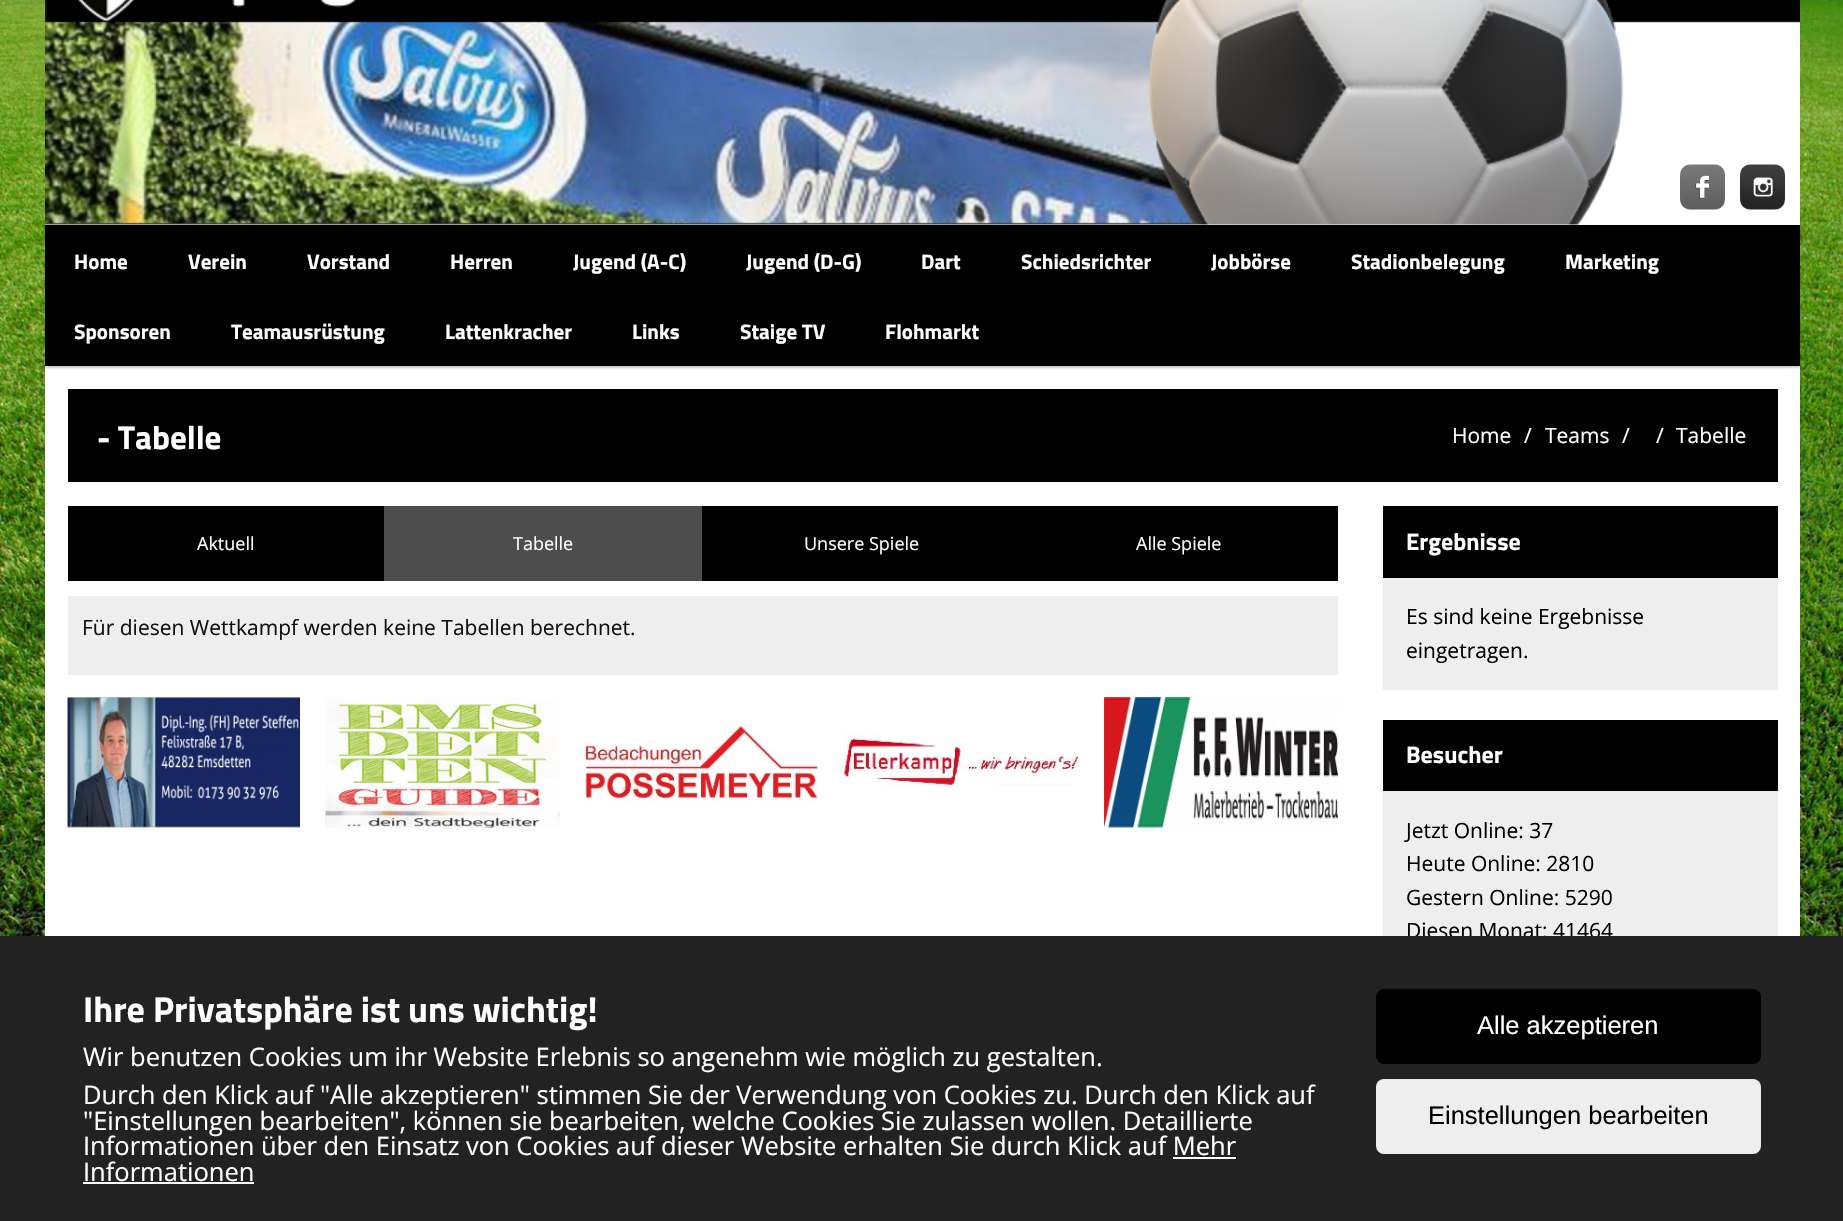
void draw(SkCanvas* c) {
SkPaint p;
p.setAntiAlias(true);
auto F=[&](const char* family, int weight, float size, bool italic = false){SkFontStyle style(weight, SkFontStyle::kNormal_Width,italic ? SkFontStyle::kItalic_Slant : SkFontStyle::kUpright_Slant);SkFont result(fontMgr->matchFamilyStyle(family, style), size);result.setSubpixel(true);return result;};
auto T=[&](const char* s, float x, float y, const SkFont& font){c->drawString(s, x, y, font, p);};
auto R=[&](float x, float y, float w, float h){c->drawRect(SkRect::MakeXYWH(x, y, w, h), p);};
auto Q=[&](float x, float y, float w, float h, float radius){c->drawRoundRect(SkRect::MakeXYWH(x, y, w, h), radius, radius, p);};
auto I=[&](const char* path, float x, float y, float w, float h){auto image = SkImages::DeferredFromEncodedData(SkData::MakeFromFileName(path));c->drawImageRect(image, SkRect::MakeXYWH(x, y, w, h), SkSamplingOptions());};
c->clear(0xffffffff);
I("1.png",0,0,1843,936);
p.setColor(0xffffffff);
R(45,224,1755,712);
I("2.png",45,0,1755,225);
I("3.png",1680,164,45,46);
I("4.png",1740,164,45,46);
p.setColor(0x33000000);
p.setMaskFilter(SkMaskFilter::MakeBlur(kNormal_SkBlurStyle, 1));
c->drawRect(SkRect::MakeXYWH(45,227,1755,141),p);
p.setMaskFilter(nullptr);
p.setColor(0xff000000);
R(45,225,1755,141);
auto f1 = F("Titillium Web",700,21);
p.setColor(0xffffffff);
T("Home",74,269,f1);
T("Verein",188,269,f1);
T("Vorstand",307,269,f1);
T("Herren",450,269,f1);
T("Jugend (A-C)",573,269,f1);
T("Jugend (D-G)",746,269,f1);
T("Dart",921,269,f1);
T("Schiedsrichter",1021,269,f1);
T("Jobbörse",1211,269,f1);
T("Stadionbelegung",1351,269,f1);
T("Marketing",1565,269,f1);
T("Sponsoren",74,339,f1);
T("Teamausrüstung",231,339,f1);
T("Lattenkracher",445,339,f1);
T("Links",632,339,f1);
T("Staige TV",740,339,f1);
T("Flohmarkt",885,339,f1);
p.setColor(0xff000000);
R(68,389,1710,93);
auto f2 = F("Titillium Web",700,33);
p.setColor(0xffffffff);
T("- Tabelle",97,449,f2);
auto f3 = F("Open Sans",400,21);
T("Home",1452,443,f3);
T("/",1524,443,f3);
T("Teams",1545,443,f3);
T("/",1622,443,f3);
T("/",1656,443,f3);
T("Tabelle",1676,443,f3);
p.setColor(0xff000000);
R(68,506,316,75);
auto f4 = F("Open Sans",400,18);
p.setColor(0xffffffff);
T("Aktuell",197,550,f4);
p.setColor(0xff4d4d4d);
R(384,506,318,75);
p.setColor(0xffffffff);
T("Tabelle",513,550,f4);
p.setColor(0xff000000);
R(702,506,636,75);
p.setColor(0xffffffff);
T("Unsere Spiele",804,550,f4);
T("Alle Spiele",1136,550,f4);
p.setColor(0xffeeeeee);
R(68,596,1270,79);
p.setColor(0xff111111);
T("Für diesen Wettkampf werden keine Tabellen berechnet.",82,635,f3);
I("5.png",67,697,233,131);
I("6.png",325,697,235,131);
I("7.png",585,723,233,78);
I("8.png",844,734,235,53);
I("9.png",1104,697,234,131);
p.setColor(0xffeeeeee);
R(1383,578,395,112);
p.setColor(0xff000000);
R(1383,506,395,72);
auto f5 = F("Titillium Web",700,24);
p.setColor(0xffffffff);
T("Ergebnisse",1406,550,f5);
p.setColor(0xff000000);
T("Es sind keine Ergebnisse",1406,624,f3);
T("eingetragen.",1406,658,f3);
p.setColor(0xffeeeeee);
R(1383,791,395,145);
p.setColor(0xff000000);
R(1383,720,395,71);
p.setColor(0xffffffff);
T("Besucher",1406,763,f5);
p.setColor(0xff000000);
T("Jetzt Online: 37",1406,838,f3);
T("Heute Online: 2810",1406,871,f3);
T("Gestern Online: 5290",1406,905,f3);
T("Diesen Monat: 41464",1406,938,f3);
p.setColor(0xff222222);
R(0,936,1843,285);
auto f6 = F("Titillium Web",700,36);
p.setColor(0xffffffff);
T("Ihre Privatsphäre ist uns wichtig!",83,1022,f6);
auto f7 = F("Open Sans",400,25.5);
T("Wir benutzen Cookies um ihr Website Erlebnis so angenehm wie möglich zu gestalten.",83,1066,f7);
T("Durch den Klick auf \"Alle akzeptieren\" stimmen Sie der Verwendung von Cookies zu. Durch den Klick auf",83,1104,f7);
T("\"Einstellungen bearbeiten\", können sie bearbeiten, welche Cookies Sie zulassen wollen. Detaillierte",83,1130,f7);
T("Informationen über den Einsatz von Cookies auf dieser Website erhalten Sie durch Klick auf Mehr",83,1155,f7);
T("Informationen",83,1181,f7);
R(1173,1157,63,2);
R(83,1182,171,2);
p.setColor(0xff000000);
Q(1376,989,385,75,8);
auto f8 = F("Liberation Sans",400,25.5);
p.setColor(0xffffffff);
T("Alle akzeptieren",1477,1034,f8);
p.setColor(0xffeeeeee);
Q(1376,1079,385,75,8);
p.setColor(0xff000000);
T("Einstellungen bearbeiten",1428,1124,f8);
}
